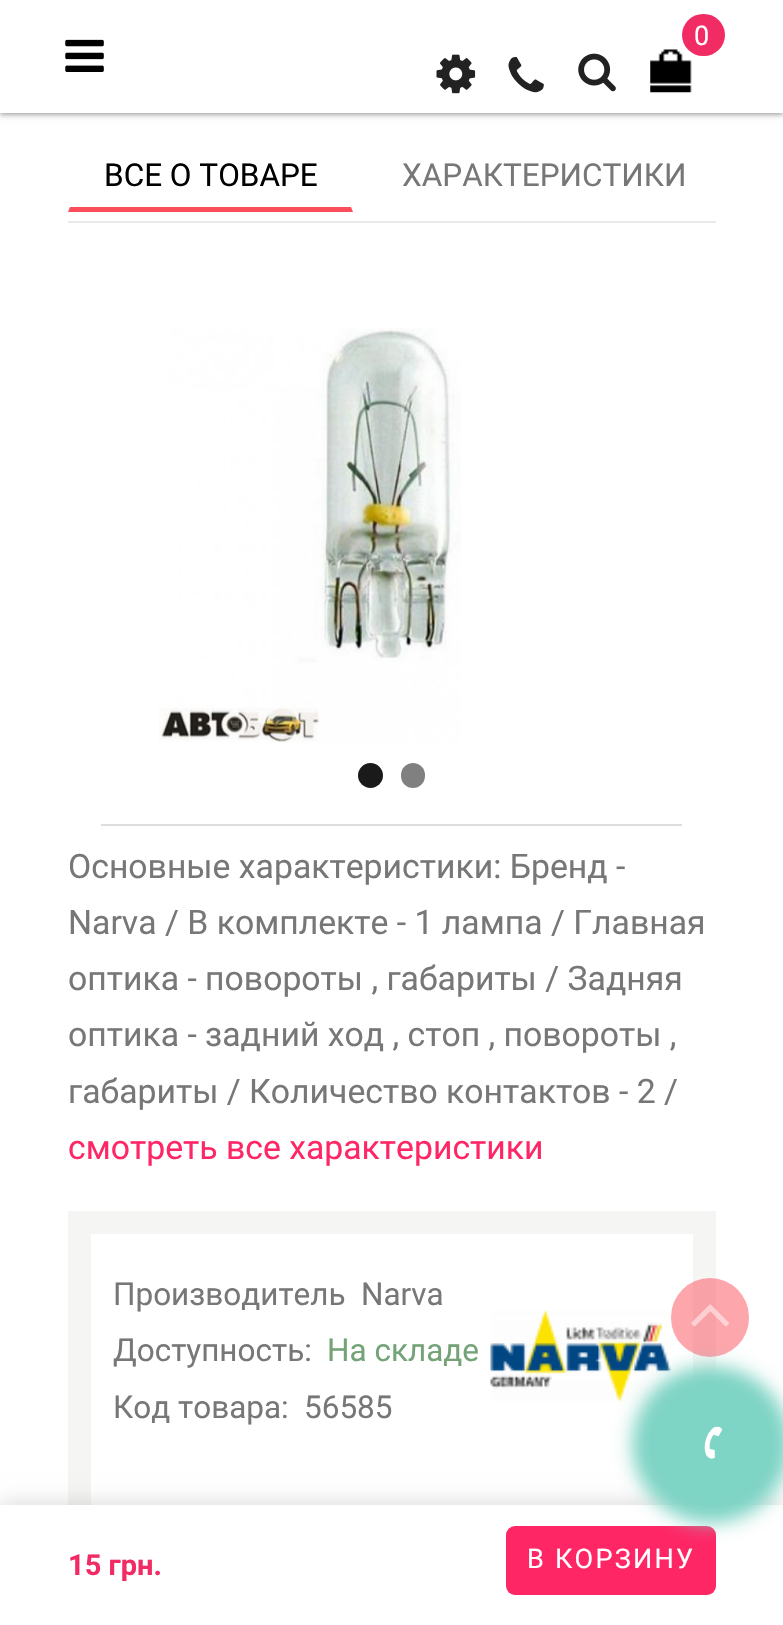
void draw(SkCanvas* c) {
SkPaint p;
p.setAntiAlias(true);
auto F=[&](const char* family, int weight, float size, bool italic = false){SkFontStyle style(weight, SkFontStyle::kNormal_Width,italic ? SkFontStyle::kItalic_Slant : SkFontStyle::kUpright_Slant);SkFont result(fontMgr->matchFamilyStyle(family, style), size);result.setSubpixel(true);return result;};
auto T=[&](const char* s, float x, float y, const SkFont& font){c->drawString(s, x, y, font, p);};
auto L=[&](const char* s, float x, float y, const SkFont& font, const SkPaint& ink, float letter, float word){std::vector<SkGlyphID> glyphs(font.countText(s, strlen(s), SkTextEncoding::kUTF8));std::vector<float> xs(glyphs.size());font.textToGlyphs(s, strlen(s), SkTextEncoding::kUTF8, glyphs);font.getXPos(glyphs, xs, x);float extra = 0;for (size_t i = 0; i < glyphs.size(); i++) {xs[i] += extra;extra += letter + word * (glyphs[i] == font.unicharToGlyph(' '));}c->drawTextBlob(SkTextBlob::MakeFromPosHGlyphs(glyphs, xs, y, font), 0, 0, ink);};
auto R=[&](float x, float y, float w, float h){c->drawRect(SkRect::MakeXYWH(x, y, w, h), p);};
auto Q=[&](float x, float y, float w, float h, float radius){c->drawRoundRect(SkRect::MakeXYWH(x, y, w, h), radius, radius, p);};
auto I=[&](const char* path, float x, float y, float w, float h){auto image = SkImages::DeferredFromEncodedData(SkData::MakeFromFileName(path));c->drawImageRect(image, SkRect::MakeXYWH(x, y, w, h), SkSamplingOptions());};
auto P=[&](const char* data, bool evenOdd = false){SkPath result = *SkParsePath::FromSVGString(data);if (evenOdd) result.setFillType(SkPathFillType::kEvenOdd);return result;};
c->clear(0xffffffff);
p.setColor(0x3d000000);
p.setMaskFilter(SkMaskFilter::MakeBlur(kNormal_SkBlurStyle, 2));
c->drawRect(SkRect::MakeXYWH(0,2,783,113),p);
p.setMaskFilter(nullptr);
p.setColor(0x1f000000);
p.setMaskFilter(SkMaskFilter::MakeBlur(kNormal_SkBlurStyle, 3.5));
c->drawRect(SkRect::MakeXYWH(0,2,783,113),p);
p.setMaskFilter(nullptr);
p.setColor(0xffffffff);
R(0,0,783,113);
I("1.png",650,49,42,44);
p.setColor(0xfff12b63);
Q(682,14,43,42,21);
auto f1 = F("Roboto",400,27);
p.setColor(0xffffffff);
T("0",694,45,f1);
I("2.png",436,54,40,40);
I("3.png",508,56,36,37);
I("4.png",578,53,38,39);
I("5.png",65,39,39,33);
p.setColor(0xffeaeae9);
R(68,221,648,2);
p.setColor(0xfffc4e5a);
c->drawPath(P("M353 212h-285l2-5h281z"),p);
auto f2 = F("Roboto",400,31.5);
p.setColor(0xff000000);
T("ВСЕ О ТОВАРЕ",104,186,f2);
p.setColor(0xff777777);
T("ХАРАКТЕРИСТИКИ",402,186,f2);
p.setStroke(true);
p.setStrokeWidth(23);
p.setColor(0xfff5f5f4);
c->drawRect(SkRect::MakeXYWH(79.5,1222.5,625,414),p);
p.setStroke(false);
p.setColor(0x1f000000);
p.setMaskFilter(SkMaskFilter::MakeBlur(kNormal_SkBlurStyle, 9));
c->drawRect(SkRect::MakeXYWH(0,1501,783,121),p);
p.setMaskFilter(nullptr);
p.setColor(0xffffffff);
R(0,1505,783,120);
auto f3 = F("Roboto",700,29);
p.setColor(0xfff12b63);
T("15 грн.",68,1575,f3);
p.setColor(0xffff2666);
Q(506,1526,210,69,9);
p.setColor(0xffffffff);
L("В КОРЗИНУ",527,1568,f1,p,2.25,0);
I("6.png",159,328,302,415);
p.setColor(0xff1a1a1a);
c->drawCircle(370.5,775.5,12.5,p);
p.setColor(0xff808080);
Q(401,763,24,25,12);
p.setColor(0xffdddddd);
R(101,824,581,2);
auto f4 = F("Roboto",400,33.75);
p.setColor(0xff777777);
T("Основные характеристики: Бренд -",68,878,f4);
T("Narva / В комплекте - 1 лампа / Главная",68,934,f4);
T("оптика - повороты , габариты / Задняя",68,990,f4);
T("оптика - задний ход , стоп , повороты ,",68,1046,f4);
T("габариты / Количество контактов - 2 /",68,1103,f4);
p.setColor(0xffff2666);
T("смотреть все характеристики",68,1159,f4);
p.setColor(0xff777777);
T("Производитель",113,1305,f2);
T("Narva",361,1305,f2);
T("Доступность:",113,1361,f2);
p.setColor(0xff74a378);
T("На складе",327,1361,f2);
I("7.png",490,1309,181,94);
p.setColor(0xff777777);
T("Код товара:",113,1418,f2);
T("56585",304,1418,f2);
p.setColor(0x80fc4e5a);
Q(671,1278,78,79,39);
p.setColor(0xff7ed4c5);
p.setMaskFilter(SkMaskFilter::MakeBlur(kNormal_SkBlurStyle, 9));
c->drawRoundRect(SkRect::MakeXYWH(632,1366,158,157),78.5,78.5,p);
p.setMaskFilter(nullptr);
I("8.png",704,1426,19,33);
I("9.png",691,1304,38,23);
}
